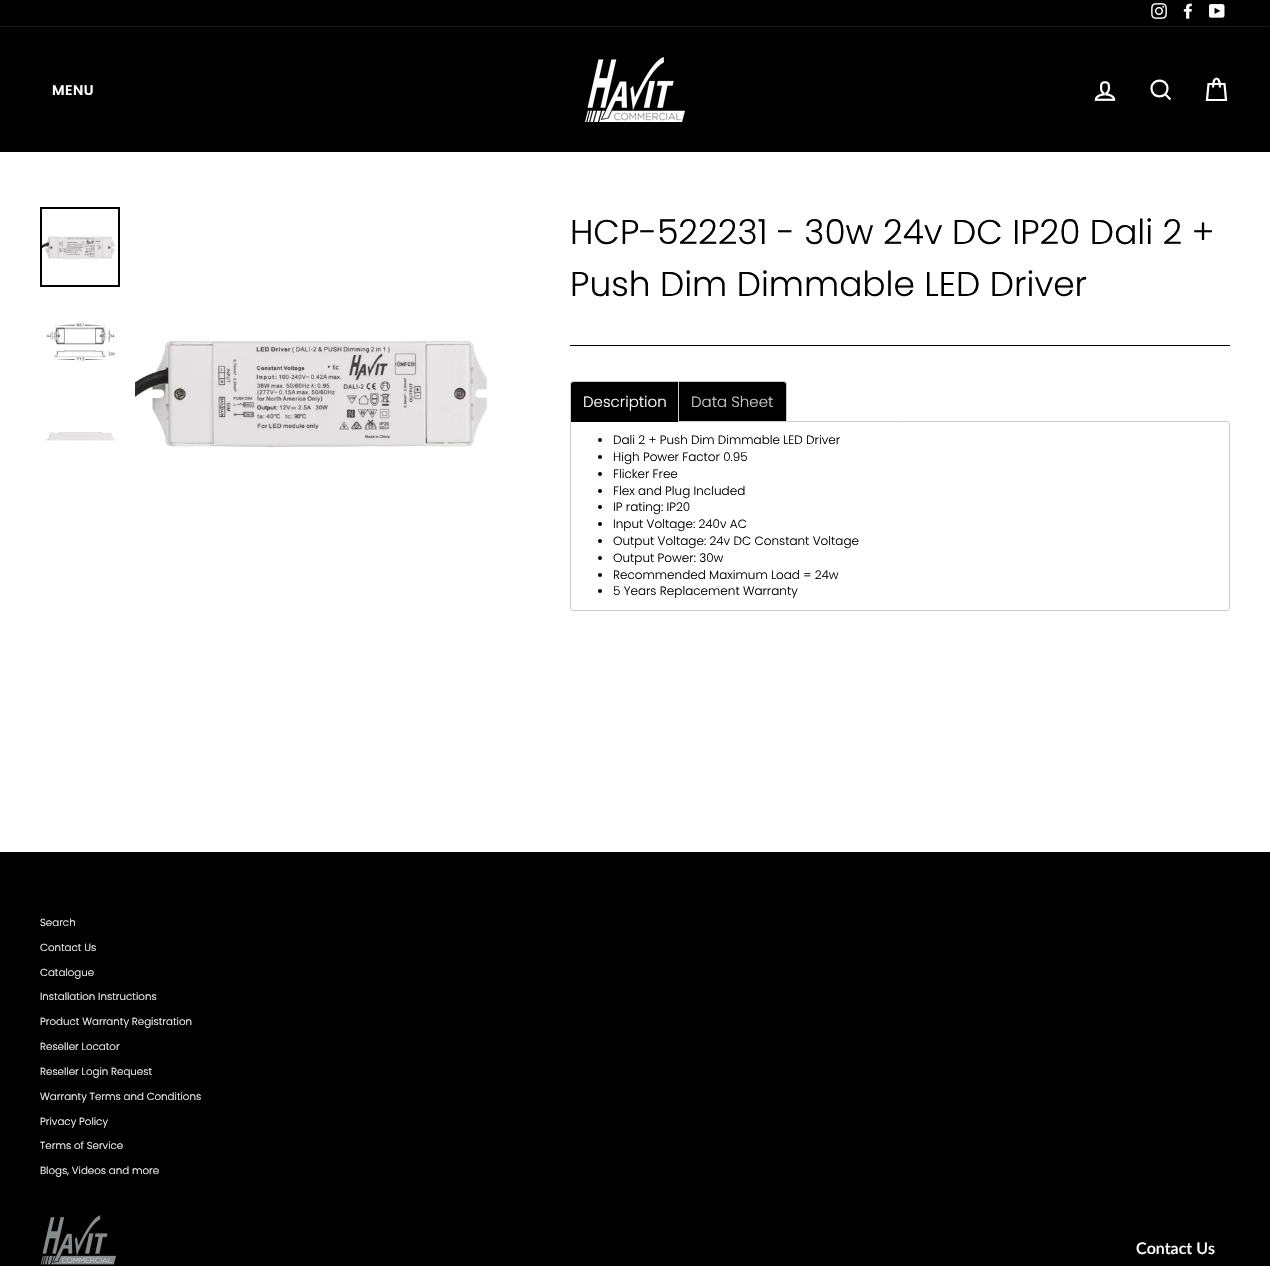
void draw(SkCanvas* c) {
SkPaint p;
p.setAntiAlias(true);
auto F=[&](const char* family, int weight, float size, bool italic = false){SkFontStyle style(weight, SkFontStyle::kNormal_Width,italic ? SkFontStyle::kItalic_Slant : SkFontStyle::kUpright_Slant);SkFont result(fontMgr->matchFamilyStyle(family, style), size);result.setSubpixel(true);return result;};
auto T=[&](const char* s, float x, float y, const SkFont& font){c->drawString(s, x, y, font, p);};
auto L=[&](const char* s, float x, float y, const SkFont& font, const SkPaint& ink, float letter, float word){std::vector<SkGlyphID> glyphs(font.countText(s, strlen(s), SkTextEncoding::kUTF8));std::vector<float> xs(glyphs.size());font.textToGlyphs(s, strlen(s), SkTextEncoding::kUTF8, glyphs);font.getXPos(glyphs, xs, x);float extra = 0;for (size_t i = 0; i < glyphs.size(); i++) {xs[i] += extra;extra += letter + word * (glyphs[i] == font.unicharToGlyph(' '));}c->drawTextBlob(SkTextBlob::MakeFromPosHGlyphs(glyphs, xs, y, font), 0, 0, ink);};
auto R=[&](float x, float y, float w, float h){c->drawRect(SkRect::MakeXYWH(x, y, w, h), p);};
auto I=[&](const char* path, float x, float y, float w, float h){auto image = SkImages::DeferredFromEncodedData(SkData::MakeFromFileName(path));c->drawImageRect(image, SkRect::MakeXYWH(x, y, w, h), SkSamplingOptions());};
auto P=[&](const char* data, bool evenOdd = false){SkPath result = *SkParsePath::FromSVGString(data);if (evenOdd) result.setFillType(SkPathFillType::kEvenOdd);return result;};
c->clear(0xffffffff);
p.setColor(0xff000000);
R(0,0,1270,26);
I("1.png",1151,3,16,16);
I("2.png",1183,3,9,16);
I("3.png",1209,4,16,14);
R(0,27,1270,125);
p.setColor(0xff1a1a1a);
R(0,26,1270,1);
auto f1 = F("Poppins",600,14);
p.setColor(0xffffffff);
L("MENU",52,95,f1,p,.5,0);
I("4.png",585,57,100,65);
I("5.png",1094,81,22,20);
p.setStroke(true);
p.setStrokeWidth(2.2);
c->drawPath(P("M1167.5 88.5c0 10.5-16 10.5-16 0c0-10.5 16-10.5 16 0zm3 11l-5-5"),p);
c->drawPath(P("M1213 87.5c0-12 7-12 7 0m-11.5-3.5h16l1.5 16h-19z"),p);
p.setStrokeWidth(2);
p.setColor(0xff000000);
c->drawRect(SkRect::MakeXYWH(41,208,78,78),p);
I("6.png",42,236,73,23);
I("7.png",46,323,69,38);
I("8.png",46,432,70,9);
I("9.png",135,340,353,108);
auto f2 = F("Poppins",300,34.4);
p.setStroke(false);
T("HCP-522231 - 30w 24v DC IP20 Dali 2 +",570,244,f2);
T("Push Dim Dimmable LED Driver",570,296,f2);
R(570,345,660,1);
p.setStroke(true);
p.setStrokeWidth(1);
p.setColor(0xffcdcdcd);
c->drawPath(P("M570.5 421.5h656.5c1.5 0 2.5 1 2.5 2.5v184c0 1.5-1 2.5-2.5 2.5h-654c-1.5 0-2.5-1-2.5-2.5z"),p);
p.setStroke(false);
p.setColor(0xff000000);
c->drawPath(P("M573 382h105v40h-107v-38c0-1 1-2 2-2z"),p);
p.setColor(0xffcdcdcd);
c->drawPath(P("M573 381h106v41h-109v-38c0-2 1-3 3-3zm0 1h105v40h-107v-38c0-1 1-2 2-2z",true),p);
auto f3 = F("Poppins",300,15);
p.setColor(0xffffffff);
T("Description",583,407,f3);
p.setColor(0xff000000);
c->drawPath(P("M679 382h105c1 0 2 1 2 2v37h-107z"),p);
p.setColor(0xffcdcdcd);
c->drawPath(P("M679 381h105c2 0 3 1 3 3v38h-108zm0 1h105c1 0 2 1 2 2v37h-107z",true),p);
T("Data Sheet",691,407,f3);
p.setColor(0xff000000);
c->drawCircle(600,440,2,p);
auto f4 = F("Poppins",300,12);
T("Dali 2 + Push Dim Dimmable LED Driver",613,444,f4);
c->drawCircle(600,457,2,p);
T("High Power Factor 0.95",613,461,f4);
c->drawCircle(600,474,2,p);
T("Flicker Free",613,478,f4);
c->drawCircle(600,491,2,p);
T("Flex and Plug Included",613,495,f4);
c->drawCircle(600,507,2,p);
T("IP rating: IP20",613,511,f4);
c->drawCircle(600,524,2,p);
T("Input Voltage: 240v AC",613,528,f4);
c->drawCircle(600,541,2,p);
T("Output Voltage: 24v DC Constant Voltage",613,545,f4);
c->drawCircle(600,558,2,p);
T("Output Power: 30w",613,562,f4);
c->drawCircle(600,575,2,p);
T("Recommended Maximum Load = 24w",613,579,f4);
c->drawCircle(600,591,2,p);
T("5 Years Replacement Warranty",613,595,f4);
R(0,852,1270,414);
auto f5 = F("Poppins",300,10.25);
p.setColor(0xffffffff);
T("Search",40,926,f5);
T("Contact Us",40,951,f5);
T("Catalogue",40,976,f5);
T("Installation Instructions",40,1000,f5);
T("Product Warranty Registration",40,1025,f5);
T("Reseller Locator",40,1050,f5);
T("Reseller Login Request",40,1075,f5);
T("Warranty Terms and Conditions",40,1100,f5);
T("Privacy Policy",40,1125,f5);
T("Terms of Service",40,1149,f5);
T("Blogs, Videos and more",40,1174,f5);
I("10.png",40,1215,76,50);
auto f6 = F("Lato",600,16);
T("Contact Us",1136,1254,f6);
}
